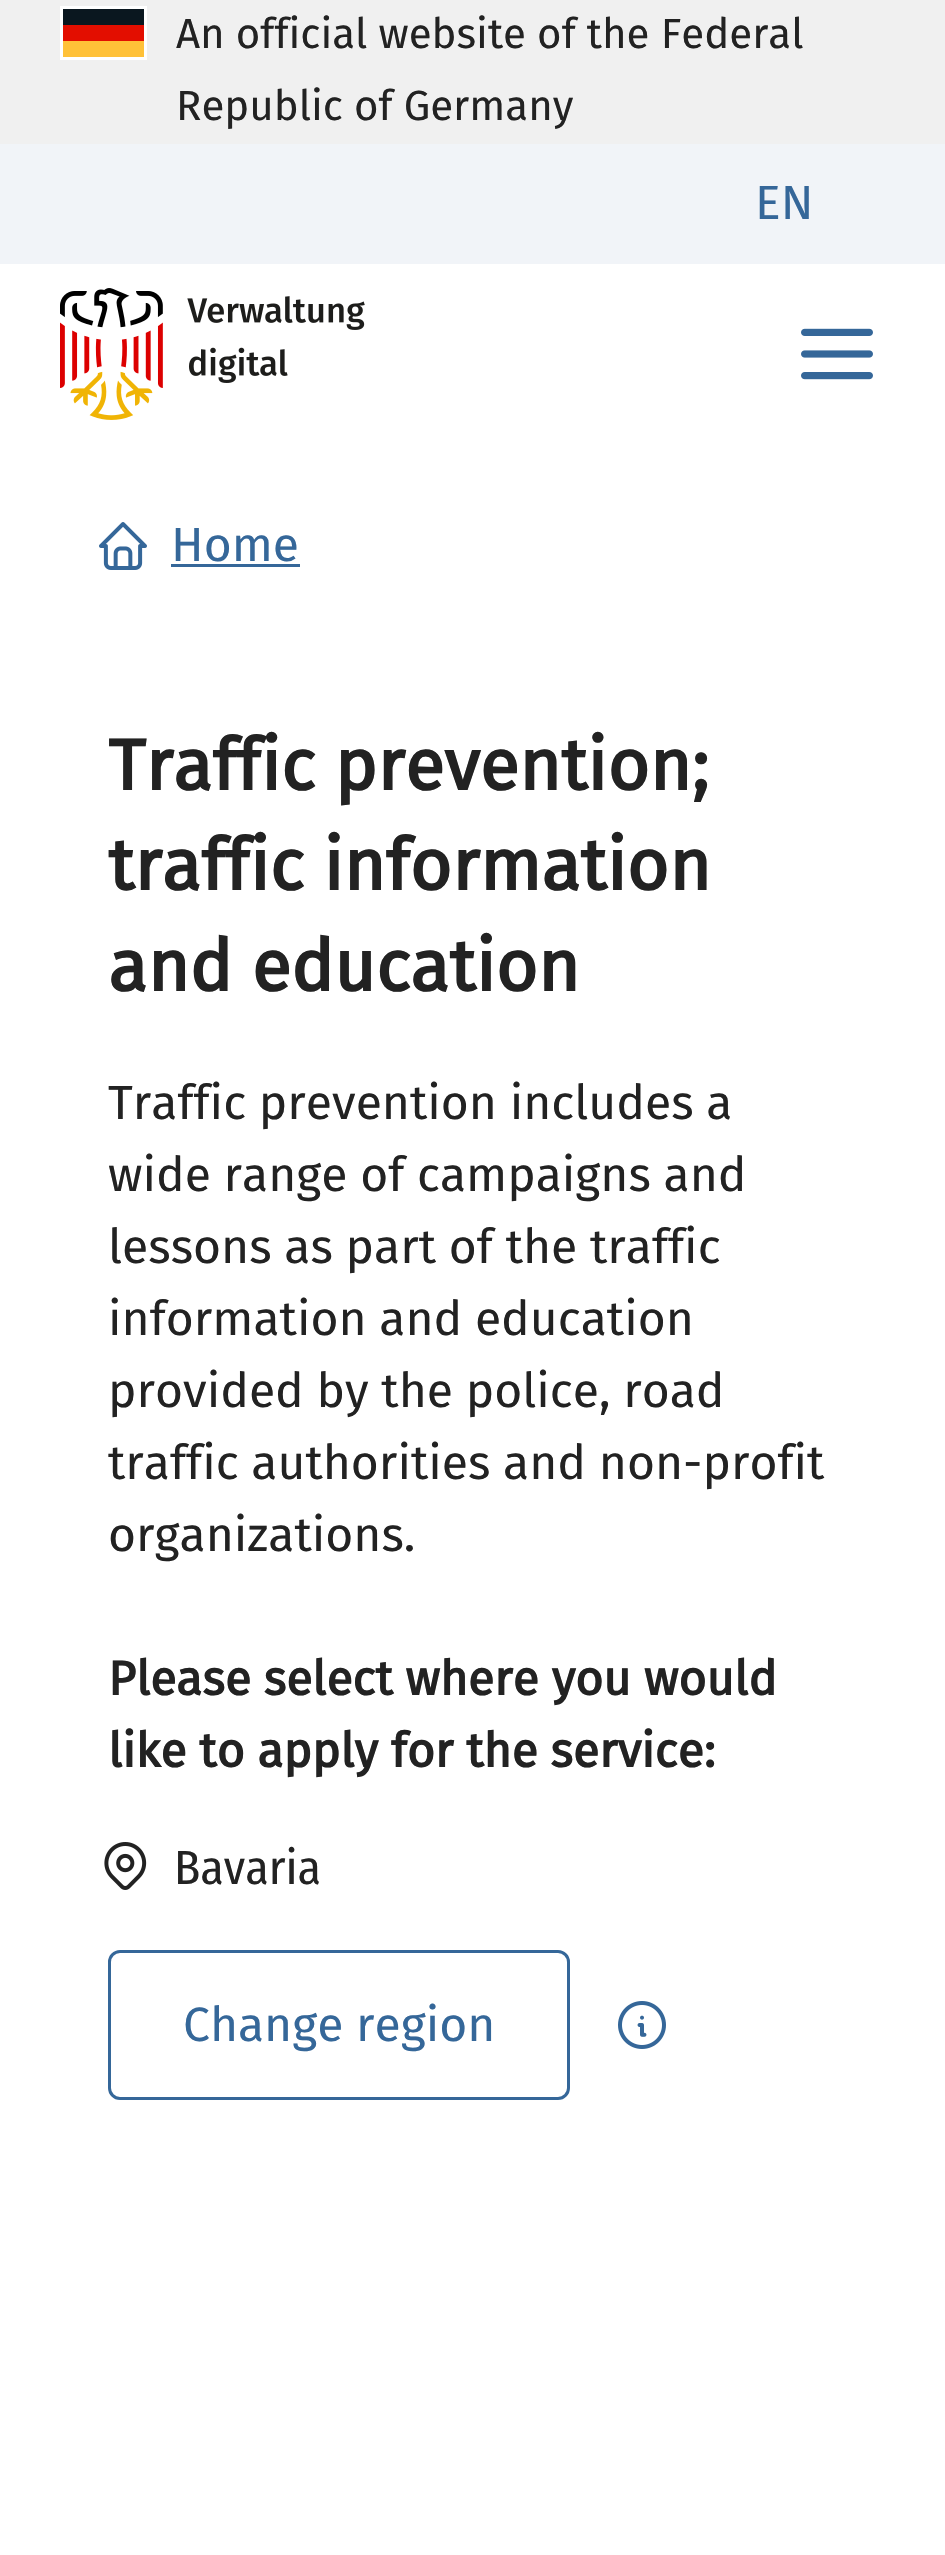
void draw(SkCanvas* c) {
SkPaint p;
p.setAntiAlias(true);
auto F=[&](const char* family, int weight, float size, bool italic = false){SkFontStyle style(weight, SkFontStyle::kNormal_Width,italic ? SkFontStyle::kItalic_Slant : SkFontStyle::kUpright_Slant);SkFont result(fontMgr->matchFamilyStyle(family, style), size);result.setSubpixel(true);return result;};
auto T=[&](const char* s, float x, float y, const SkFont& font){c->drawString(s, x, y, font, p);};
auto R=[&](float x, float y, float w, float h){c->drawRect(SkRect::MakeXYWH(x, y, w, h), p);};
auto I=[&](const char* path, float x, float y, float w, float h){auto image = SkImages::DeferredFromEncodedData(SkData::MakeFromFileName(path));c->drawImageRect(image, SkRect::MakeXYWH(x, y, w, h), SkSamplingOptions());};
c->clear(0xffffffff);
p.setColor(0xfff0f0f0);
R(0,0,945,144);
p.setStroke(true);
p.setStrokeWidth(3);
p.setColor(0xffffffff);
c->drawRect(SkRect::MakeXYWH(61.5,7.5,84,51),p);
I("1.png",63,9,81,48);
auto f1 = F("Fira Sans",400,42);
p.setStroke(false);
p.setColor(0xff222222);
T("An official website of the Federal",176,48,f1);
T("Republic of Germany",176,120,f1);
p.setColor(0xfff1f4f8);
R(0,144,945,120);
auto f2 = F("Fira Sans",400,48);
p.setColor(0xff356799);
T("EN",755,219,f2);
I("2.png",60,288,305,132);
I("3.png",801,328,72,52);
I("4.png",99,522,48,48);
T("Home",171,561,f2);
R(171,564,129,3);
auto f3 = F("Fira Sans",700,72);
p.setColor(0xff222222);
T("Traffic prevention;",108,790,f3);
T("traffic information",108,890,f3);
T("and education",108,991,f3);
T("Traffic prevention includes a",108,1119,f2);
T("wide range of campaigns and",108,1191,f2);
T("lessons as part of the traffic",108,1263,f2);
T("information and education",108,1335,f2);
T("provided by the police, road",108,1407,f2);
T("traffic authorities and non-profit",108,1479,f2);
T("organizations.",108,1551,f2);
auto f4 = F("Fira Sans",700,48);
T("Please select where you would",108,1695,f4);
T("like to apply for the service:",108,1767,f4);
I("5.png",104,1842,43,48);
auto f5 = F("Fira Sans Condensed",400,48);
T("Bavaria",174,1884,f5);
p.setStroke(true);
p.setColor(0xff356799);
c->drawRoundRect(SkRect::MakeXYWH(109.5,1951.5,459,147),10.5,10.5,p);
p.setStroke(false);
T("Change region",183,2041,f2);
I("6.png",618,2001,48,48);
}
